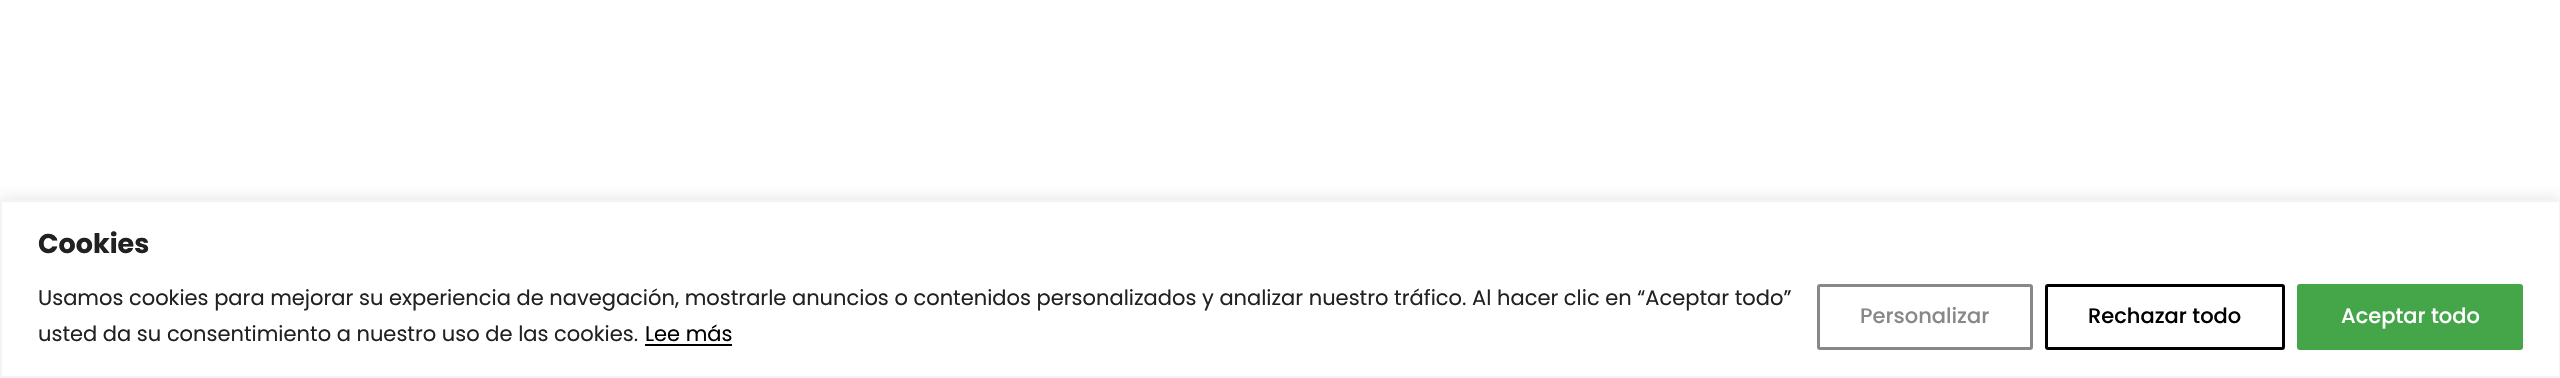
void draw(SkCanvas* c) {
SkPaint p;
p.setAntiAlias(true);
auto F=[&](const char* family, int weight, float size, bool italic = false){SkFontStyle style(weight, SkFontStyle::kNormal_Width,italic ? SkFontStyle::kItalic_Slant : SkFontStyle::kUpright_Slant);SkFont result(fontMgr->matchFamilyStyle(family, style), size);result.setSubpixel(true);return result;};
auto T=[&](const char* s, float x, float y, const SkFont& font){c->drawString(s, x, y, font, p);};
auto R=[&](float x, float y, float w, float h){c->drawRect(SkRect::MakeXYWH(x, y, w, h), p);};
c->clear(0xffffffff);
c->save();
c->clipRect(SkRect::MakeXYWH(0,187,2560,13));
p.setColor(0x4dacabab);
p.setMaskFilter(SkMaskFilter::MakeBlur(kNormal_SkBlurStyle, 7.5));
c->drawRect(SkRect::MakeXYWH(0,198,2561,179),p);
p.setMaskFilter(nullptr);
c->restore();
p.setStroke(true);
p.setStrokeWidth(2);
p.setColor(0xfff4f4f4);
c->drawRect(SkRect::MakeXYWH(1,201,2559,176),p);
auto f1 = F("Poppins",700,27);
p.setStroke(false);
p.setColor(0xff212121);
T("Cookies",38,253,f1);
auto f2 = F("Poppins",400,21);
T("Usamos cookies para mejorar su experiencia de navegación, mostrarle anuncios o contenidos personalizados y analizar nuestro tráfico. Al hacer clic en “Aceptar todo”",38,305,f2);
T("usted da su consentimiento a nuestro uso de las cookies.",38,341,f2);
p.setColor(0xff000000);
T("Lee más",645,341,f2);
R(645,344,87,2);
p.setStroke(true);
p.setStrokeWidth(3);
p.setColor(0xff888888);
c->drawRoundRect(SkRect::MakeXYWH(1818.5,285.5,213,63),1.5,1.5,p);
auto f3 = F("Poppins",500,21);
p.setStroke(false);
T("Personalizar",1860,323,f3);
p.setStroke(true);
p.setColor(0xff000000);
c->drawRoundRect(SkRect::MakeXYWH(2046.5,285.5,237,63),1.5,1.5,p);
p.setStroke(false);
T("Rechazar todo",2088,323,f3);
p.setColor(0xff44a649);
c->drawRoundRect(SkRect::MakeXYWH(2298.5,285.5,223,63),1.5,1.5,p);
p.setStroke(true);
c->drawRoundRect(SkRect::MakeXYWH(2298.5,285.5,223,63),1.5,1.5,p);
p.setStroke(false);
p.setColor(0xffffffff);
T("Aceptar todo",2341,323,f3);
}
